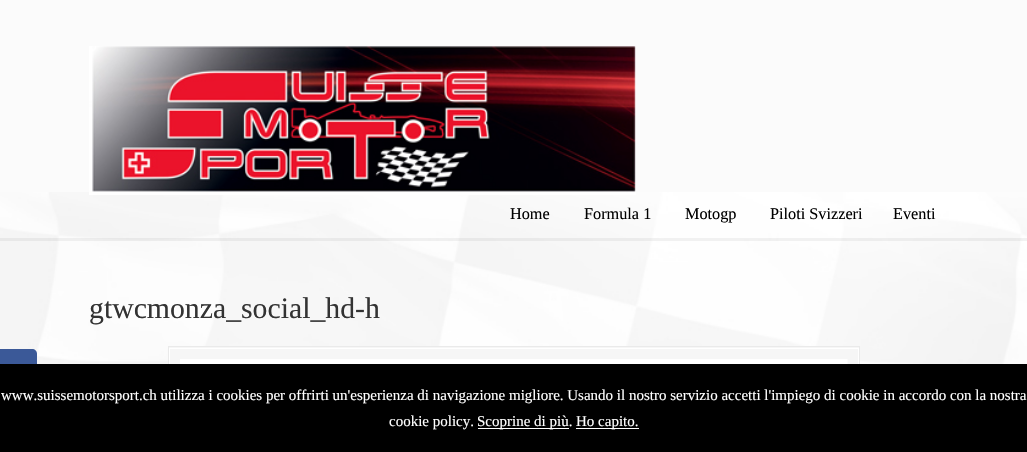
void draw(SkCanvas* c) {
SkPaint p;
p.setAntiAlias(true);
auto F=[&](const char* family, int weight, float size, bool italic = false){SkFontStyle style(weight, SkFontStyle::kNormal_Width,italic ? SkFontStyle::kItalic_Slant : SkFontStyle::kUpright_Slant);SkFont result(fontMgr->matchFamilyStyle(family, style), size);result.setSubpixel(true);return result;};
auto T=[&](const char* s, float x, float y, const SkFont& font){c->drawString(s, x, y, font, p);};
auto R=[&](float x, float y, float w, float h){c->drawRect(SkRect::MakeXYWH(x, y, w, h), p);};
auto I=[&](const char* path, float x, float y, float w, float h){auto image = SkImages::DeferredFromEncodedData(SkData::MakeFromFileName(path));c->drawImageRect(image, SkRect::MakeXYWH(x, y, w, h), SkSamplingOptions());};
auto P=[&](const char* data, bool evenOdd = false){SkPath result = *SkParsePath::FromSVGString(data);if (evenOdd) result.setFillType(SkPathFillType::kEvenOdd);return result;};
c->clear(0xfffbfbfb);
I("1.png",0,192,1027,172);
I("2.png",89,46,547,149);
auto f1 = F("Liberation Serif",400,16.25);
p.setColor(0xff000000);
T("Home",510,219,f1);
T("Formula 1",584,219,f1);
T("Motogp",685,219,f1);
T("Piloti Svizzeri",770,219,f1);
T("Eventi",893,219,f1);
p.setColor(0x0d000000);
R(0,238,1027,3);
auto f2 = F("Liberation Serif",400,29.75);
p.setColor(0xff333333);
T("gtwcmonza_social_hd-h",89,318,f2);
p.setColor(0xfff6f6f6);
R(169,347,690,17);
p.setStroke(true);
p.setStrokeWidth(1);
p.setColor(0xffeaeaea);
c->drawRect(SkRect::MakeXYWH(168.5,346.5,691,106),p);
p.setColor(0xffffffff);
c->drawRect(SkRect::MakeXYWH(169.5,348.5,689,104),p);
I("3.png",180,359,668,5);
p.setStroke(false);
p.setColor(0xff3b5998);
c->drawPath(P("M-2 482v-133h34c3 0 5 2 5 5v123c0 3-2 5-5 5z"),p);
p.setColor(0xff000000);
R(0,364,1027,88);
auto f3 = F("Liberation Serif",400,15);
p.setColor(0xffffffff);
T("www.suissemotorsport.ch utilizza i cookies per offrirti un'esperienza di navigazione migliore. Usando il nostro servizio accetti l'impiego di cookie in accordo con la nostra",1,400,f3);
T("cookie policy.",389,426,f3);
R(478,428,91,1);
T("Scoprine di più.",477,426,f3);
R(576,428,63,1);
T("Ho capito.",576,426,f3);
}
